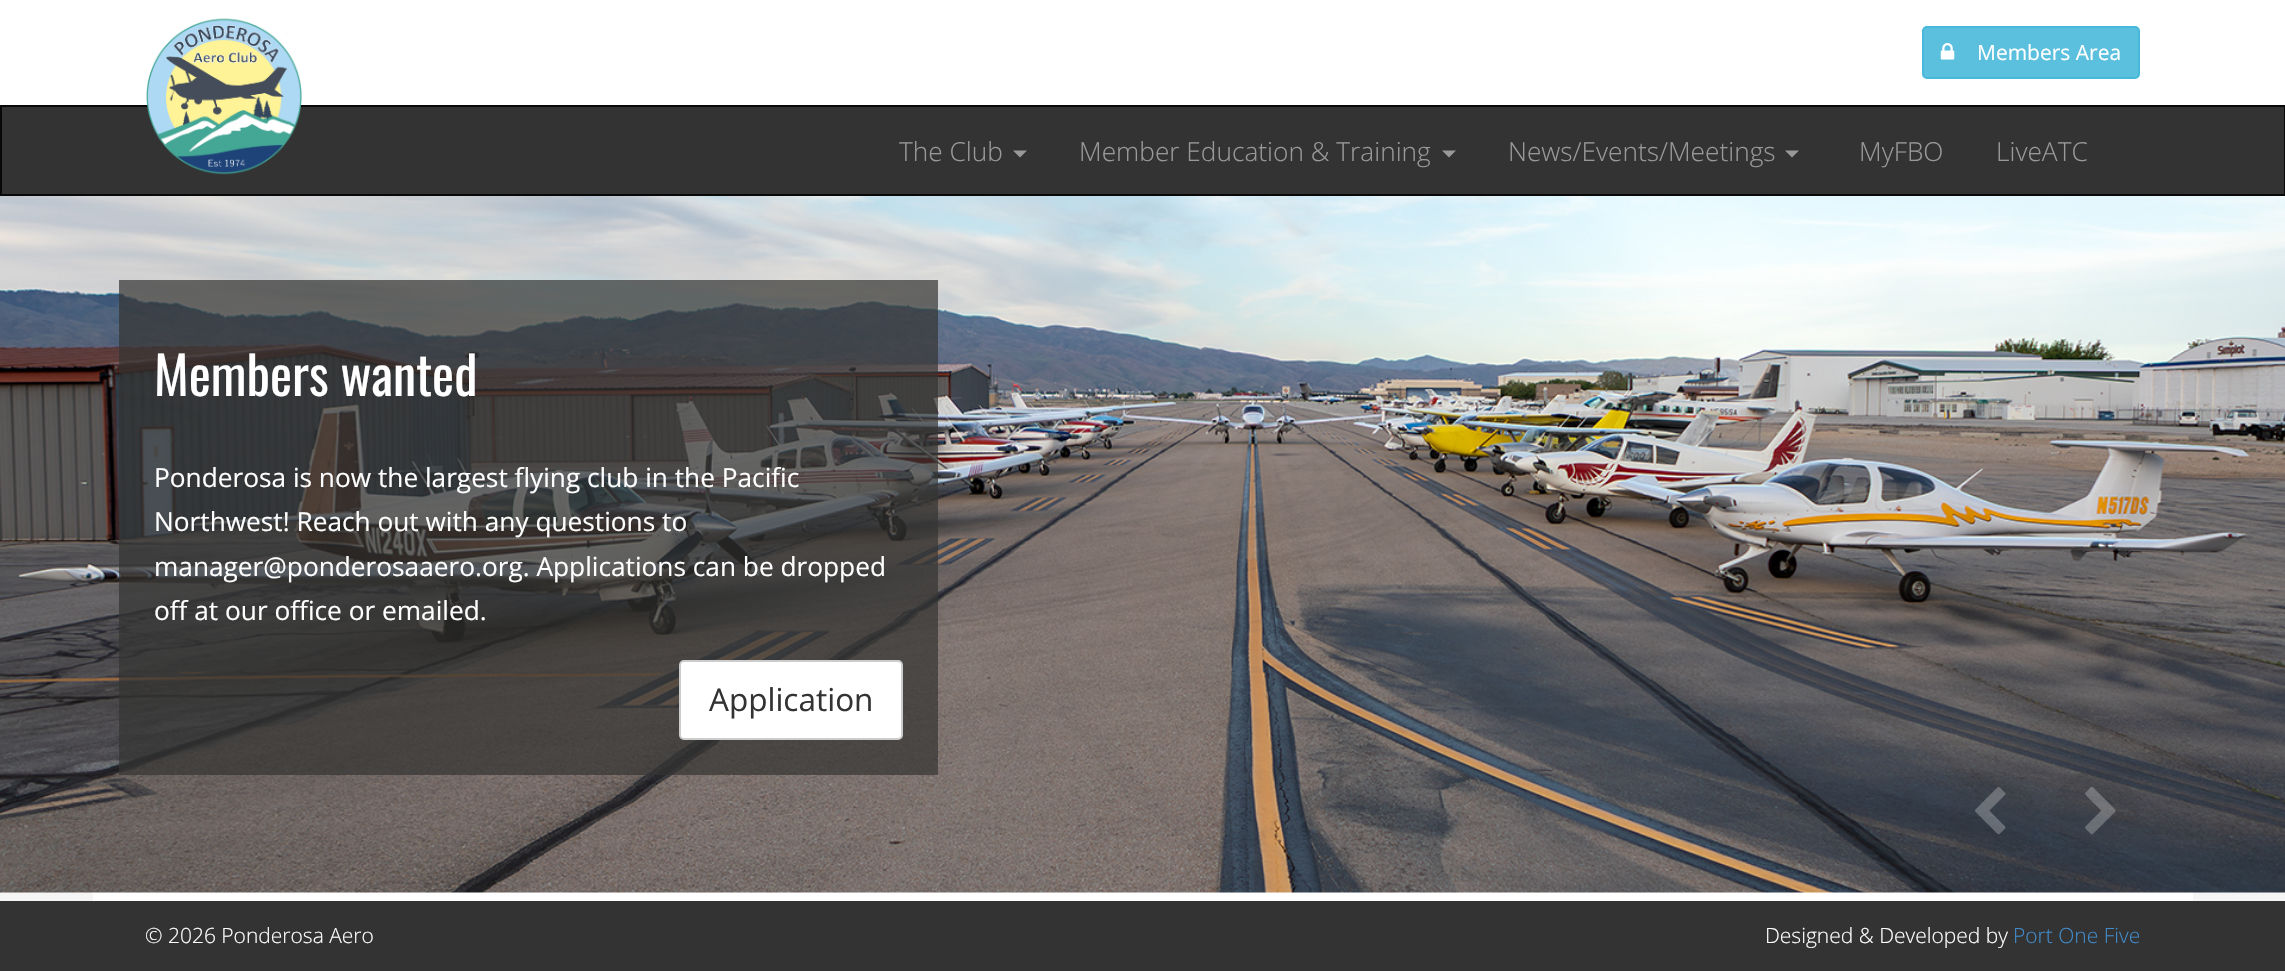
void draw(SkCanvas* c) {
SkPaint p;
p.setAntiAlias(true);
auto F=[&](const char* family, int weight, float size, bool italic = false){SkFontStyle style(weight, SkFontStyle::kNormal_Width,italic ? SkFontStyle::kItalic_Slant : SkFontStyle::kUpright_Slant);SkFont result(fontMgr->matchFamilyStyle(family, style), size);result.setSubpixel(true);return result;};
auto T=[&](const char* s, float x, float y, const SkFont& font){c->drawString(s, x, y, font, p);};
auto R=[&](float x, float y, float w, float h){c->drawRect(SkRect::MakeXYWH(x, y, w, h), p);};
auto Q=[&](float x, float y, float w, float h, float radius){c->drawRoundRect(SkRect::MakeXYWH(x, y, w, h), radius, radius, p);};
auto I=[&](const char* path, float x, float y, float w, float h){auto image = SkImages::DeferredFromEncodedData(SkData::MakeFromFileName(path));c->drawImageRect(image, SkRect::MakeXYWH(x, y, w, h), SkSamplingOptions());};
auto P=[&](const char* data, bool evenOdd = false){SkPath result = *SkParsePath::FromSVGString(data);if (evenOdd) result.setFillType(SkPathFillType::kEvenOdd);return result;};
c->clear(0xfff5f5f5);
p.setColor(0xffffffff);
R(0,0,2285,105);
p.setColor(0xff333333);
c->drawRect(SkRect::MakeXYWH(1,106,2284,89),p);
p.setStroke(true);
p.setStrokeWidth(2);
p.setColor(0xff080808);
c->drawRect(SkRect::MakeXYWH(1,106,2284,89),p);
I("1.png",146,18,156,157);
p.setStroke(false);
p.setColor(0xff5bc0de);
c->drawRoundRect(SkRect::MakeXYWH(1923,27,216,51),4,4,p);
p.setStroke(true);
p.setColor(0xff46b8da);
c->drawRoundRect(SkRect::MakeXYWH(1923,27,216,51),4,4,p);
I("2.png",1940,43,15,17);
auto f1 = F("Open Sans",400,21);
p.setStroke(false);
p.setColor(0xffffffff);
T("Members Area",1977,60,f1);
auto f2 = F("Open Sans",300,26.25);
p.setColor(0xff999999);
T("The Club",899,161,f2);
c->drawPath(P("M1013 150.5h14l-7 7z"),p);
T("Member Education & Training",1079,161,f2);
c->drawPath(P("M1442 150.5h14l-7 7z"),p);
T("News/Events/Meetings",1508,161,f2);
c->drawPath(P("M1785 150.5h14l-7 7z"),p);
T("MyFBO",1859,161,f2);
T("LiveATC",1996,161,f2);
p.setColor(0xffffffff);
R(93,892,2100,9);
I("3.png",0,196,2285,697);
p.setColor(0xb3333332);
R(119,280,819,495);
auto f3 = F("Oswald",400,52.5);
p.setColor(0xffffffff);
T("Members wanted",154,396,f3);
auto f4 = F("Open Sans",400,26.25);
T("Ponderosa is now the largest flying club in the Pacific",154,487,f4);
T("Northwest! Reach out with any questions to",154,531,f4);
T("manager@ponderosaaero.org. Applications can be dropped",154,576,f4);
T("off at our office or emailed.",154,620,f4);
c->drawRoundRect(SkRect::MakeXYWH(680,661,222,78),4,4,p);
p.setStroke(true);
p.setColor(0xffcccccc);
c->drawRoundRect(SkRect::MakeXYWH(680,661,222,78),4,4,p);
auto f5 = F("Open Sans",400,31.5);
p.setStroke(false);
p.setColor(0xff333333);
T("Application",709,711,f5);
p.setColor(0x1a333332);
Q(1948,770,87,88,43.5);
I("4.png",1975,787,31,48);
Q(2053,770,87,88,43.5);
I("5.png",2085,787,31,48);
p.setColor(0xff333333);
R(0,901,2285,70);
auto f6 = F("Open Sans",300,21);
p.setColor(0xffffffff);
T("© 2026 Ponderosa Aero",145,943,f6);
T("Designed & Developed by",1765,943,f6);
p.setColor(0xff428bca);
T("Port One Five",2013,943,f6);
}
